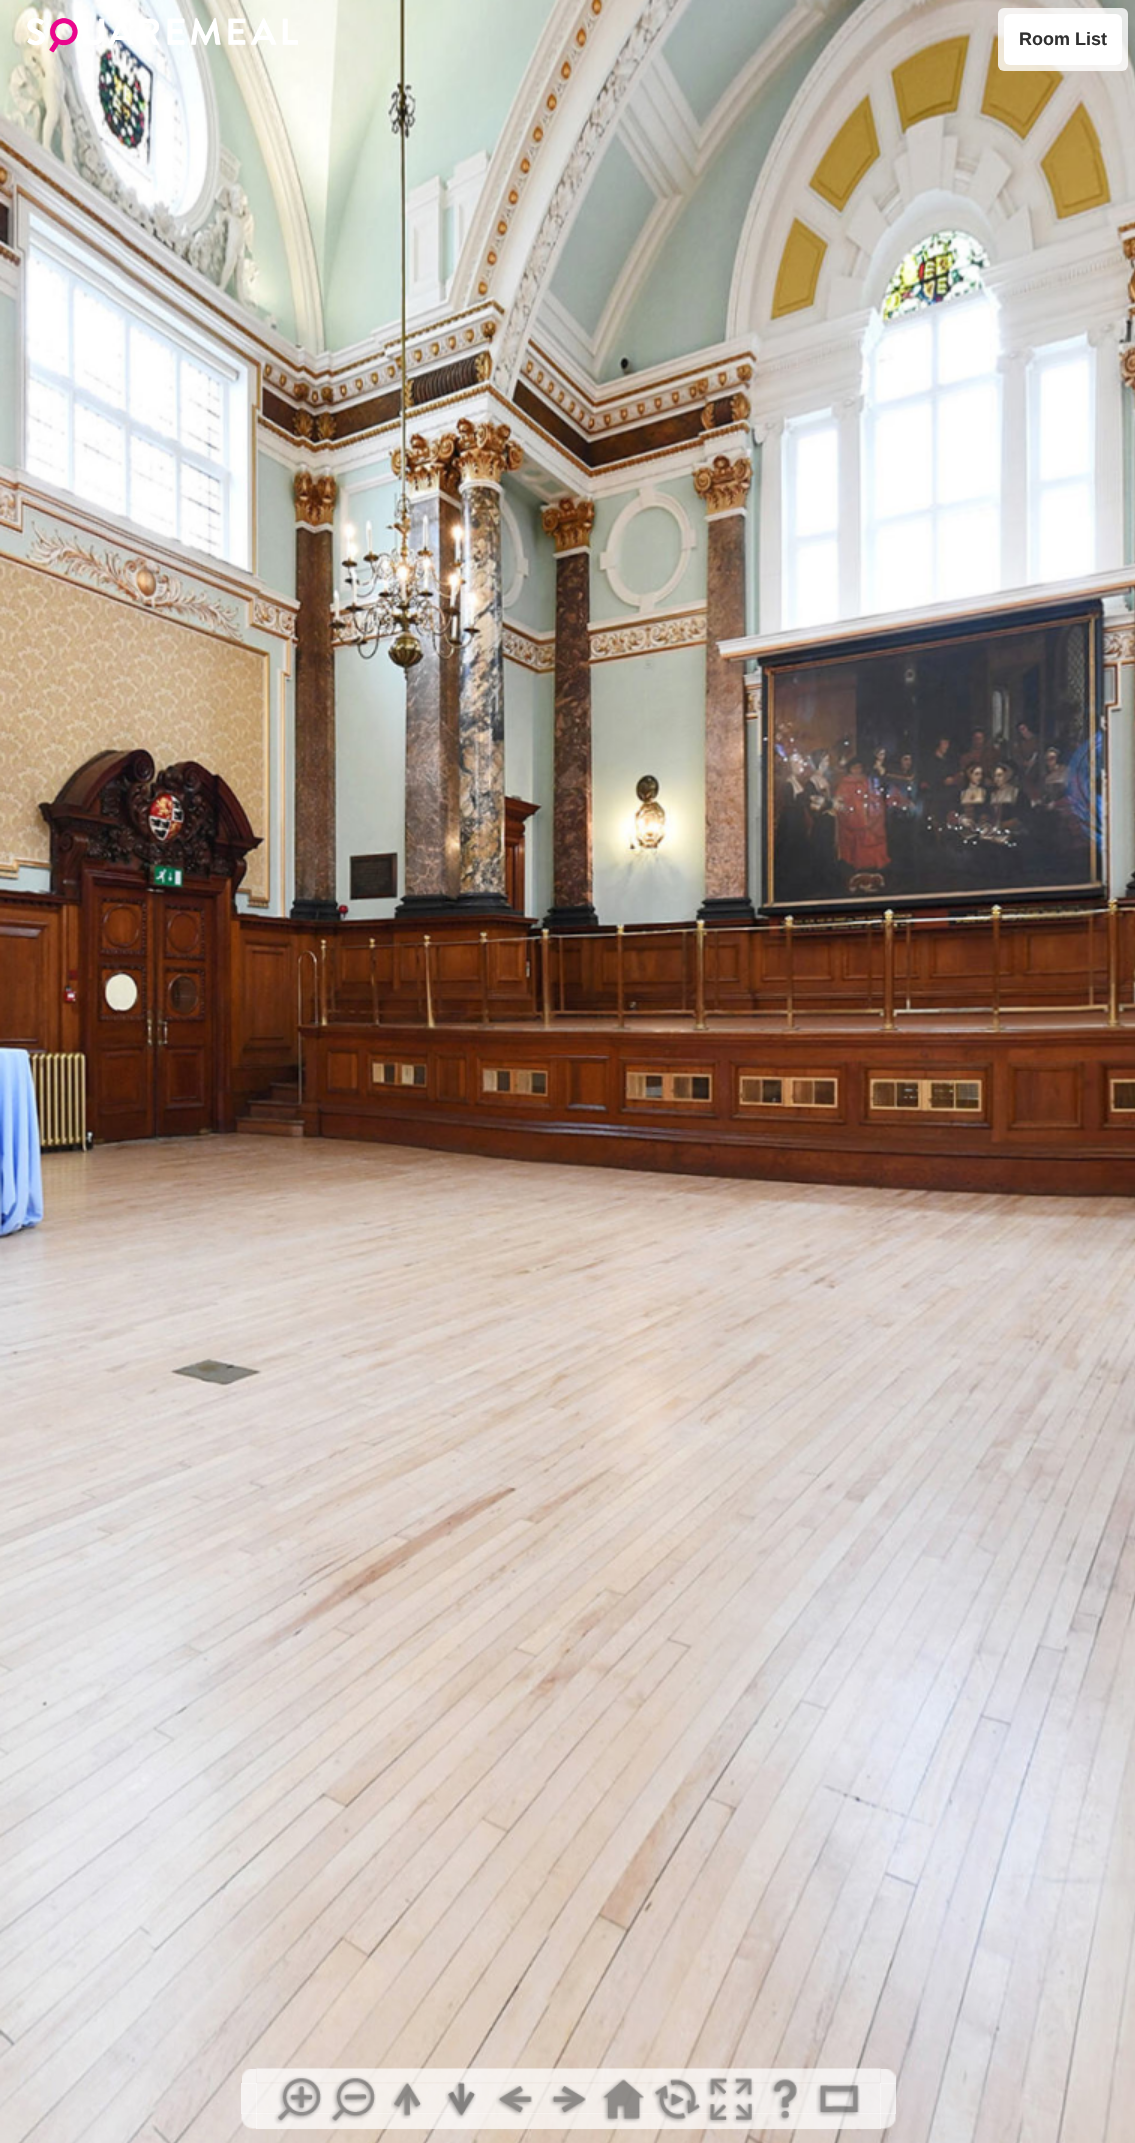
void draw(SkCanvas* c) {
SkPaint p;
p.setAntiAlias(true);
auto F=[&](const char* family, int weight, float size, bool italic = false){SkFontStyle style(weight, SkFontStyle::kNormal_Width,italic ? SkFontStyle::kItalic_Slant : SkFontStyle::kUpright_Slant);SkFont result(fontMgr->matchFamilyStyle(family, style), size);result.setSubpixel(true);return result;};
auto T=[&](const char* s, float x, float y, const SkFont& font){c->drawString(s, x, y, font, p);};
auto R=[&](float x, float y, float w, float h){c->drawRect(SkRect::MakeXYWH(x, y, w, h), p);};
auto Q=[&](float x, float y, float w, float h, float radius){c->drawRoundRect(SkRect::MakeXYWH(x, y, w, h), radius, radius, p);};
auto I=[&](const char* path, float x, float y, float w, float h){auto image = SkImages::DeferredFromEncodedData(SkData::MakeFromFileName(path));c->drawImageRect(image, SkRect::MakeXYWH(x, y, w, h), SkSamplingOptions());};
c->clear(0xffffffff);
I("1.png",0,0,1135,2143);
I("2.png",27,18,271,35);
I("3.png",242,2069,15,15);
I("4.png",256,2068,625,16);
I("5.png",880,2069,16,15);
p.setColor(0xb3ffffff);
R(241,2083,16,31);
I("6.png",256,2083,625,31);
R(880,2083,16,31);
I("7.png",241,2113,16,16);
R(256,2113,625,16);
I("8.png",880,2113,16,16);
I("9.png",274,2076,48,48);
I("10.png",329,2076,47,48);
I("11.png",391,2082,31,37);
I("12.png",445,2082,31,37);
I("13.png",496,2085,37,31);
I("14.png",549,2085,37,31);
I("15.png",601,2078,43,45);
I("16.png",652,2078,49,45);
I("17.png",706,2077,48,47);
I("18.png",770,2077,28,45);
I("19.png",816,2084,44,33);
p.setColor(0xccffffff);
Q(998,8,130,63,6);
p.setColor(0xffffffff);
Q(1004,14,118,51,6);
auto f1 = F("Liberation Sans",700,18);
p.setColor(0xff313131);
T("Room List",1019,45,f1);
}
